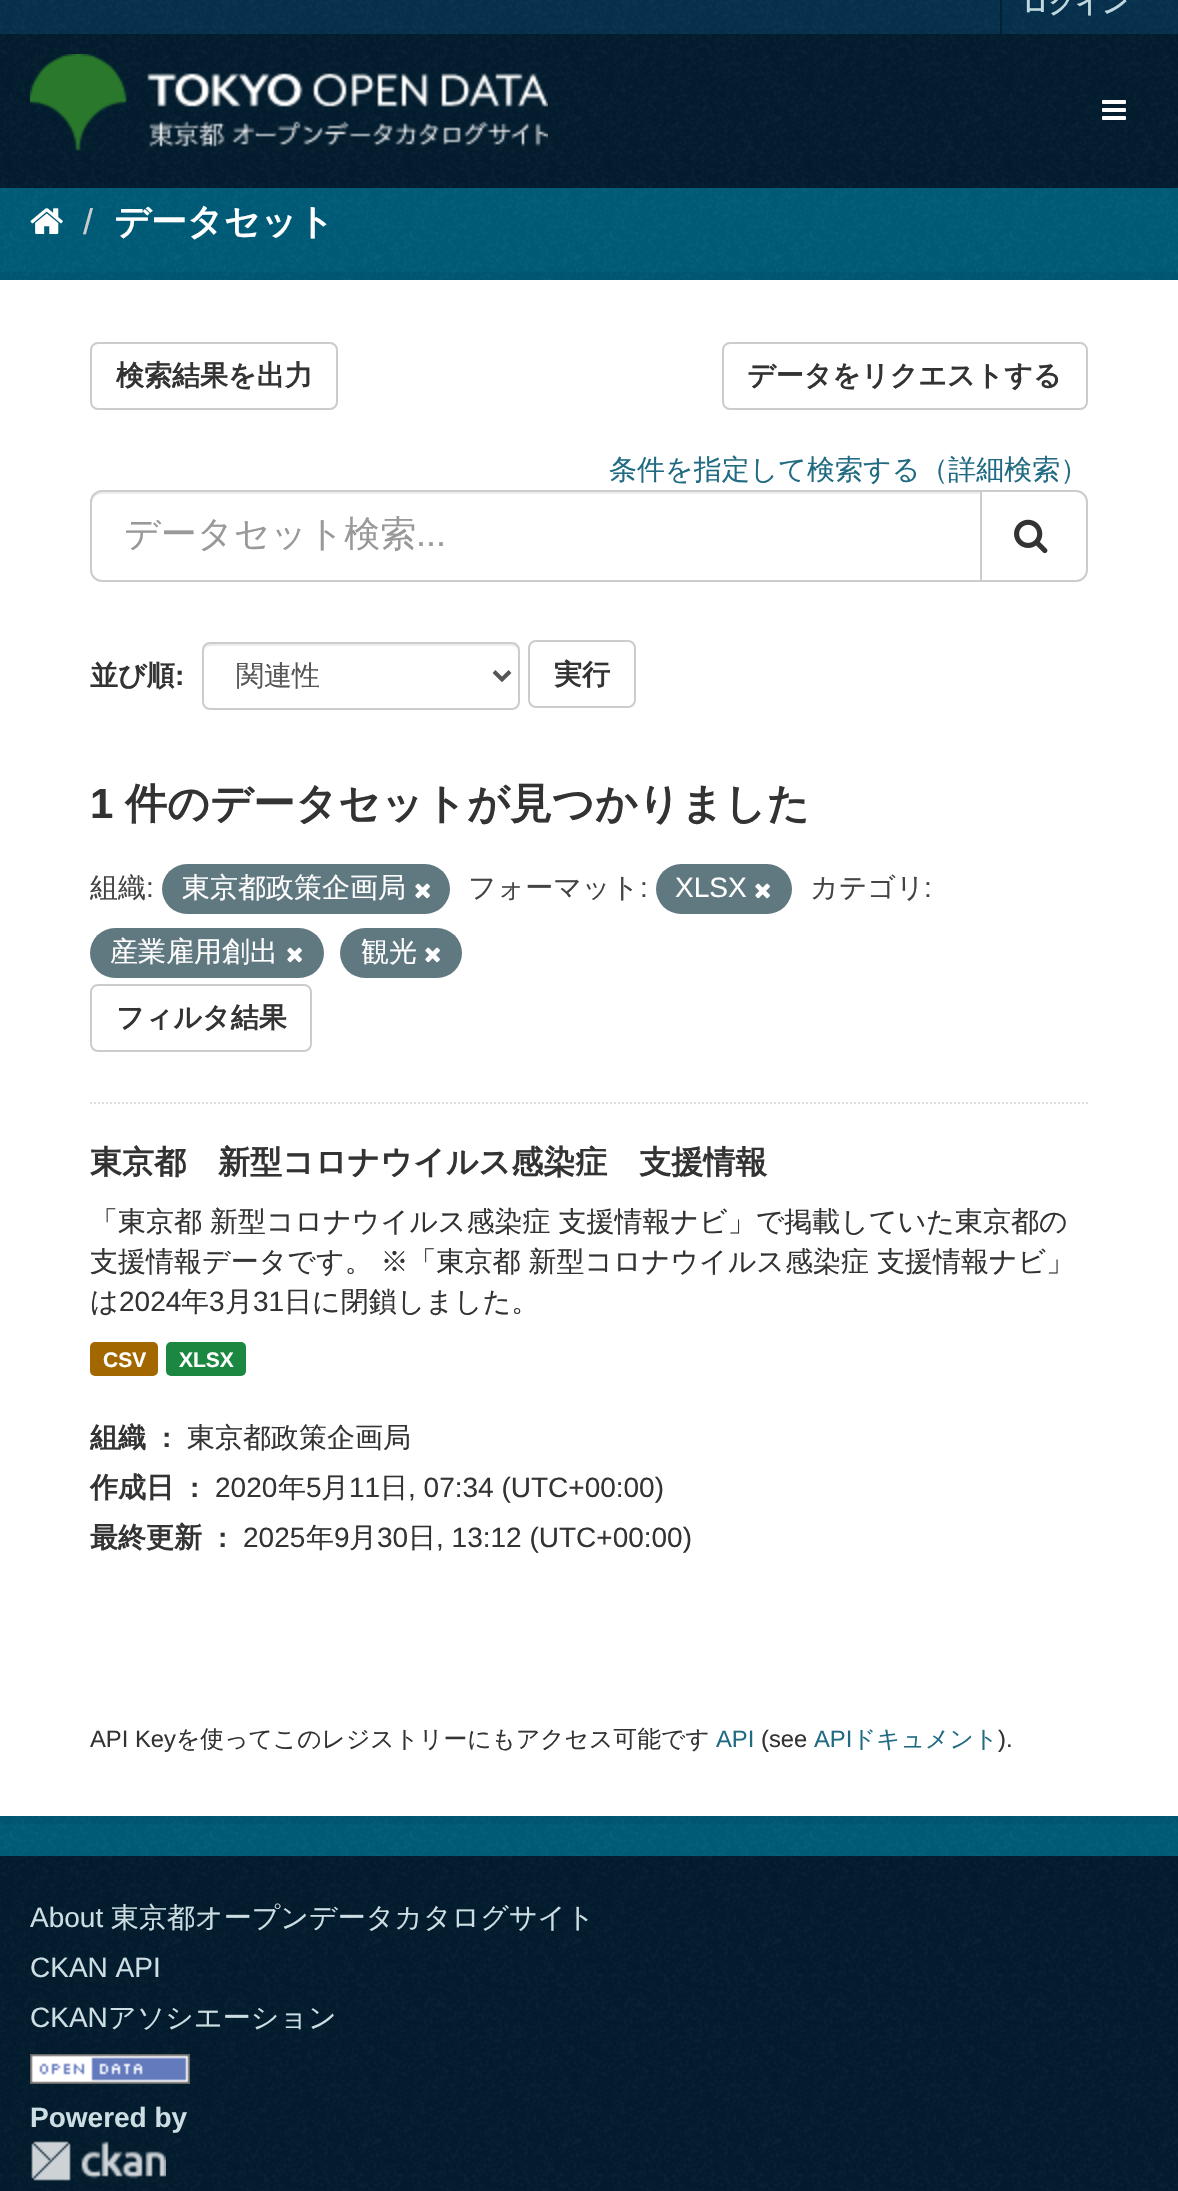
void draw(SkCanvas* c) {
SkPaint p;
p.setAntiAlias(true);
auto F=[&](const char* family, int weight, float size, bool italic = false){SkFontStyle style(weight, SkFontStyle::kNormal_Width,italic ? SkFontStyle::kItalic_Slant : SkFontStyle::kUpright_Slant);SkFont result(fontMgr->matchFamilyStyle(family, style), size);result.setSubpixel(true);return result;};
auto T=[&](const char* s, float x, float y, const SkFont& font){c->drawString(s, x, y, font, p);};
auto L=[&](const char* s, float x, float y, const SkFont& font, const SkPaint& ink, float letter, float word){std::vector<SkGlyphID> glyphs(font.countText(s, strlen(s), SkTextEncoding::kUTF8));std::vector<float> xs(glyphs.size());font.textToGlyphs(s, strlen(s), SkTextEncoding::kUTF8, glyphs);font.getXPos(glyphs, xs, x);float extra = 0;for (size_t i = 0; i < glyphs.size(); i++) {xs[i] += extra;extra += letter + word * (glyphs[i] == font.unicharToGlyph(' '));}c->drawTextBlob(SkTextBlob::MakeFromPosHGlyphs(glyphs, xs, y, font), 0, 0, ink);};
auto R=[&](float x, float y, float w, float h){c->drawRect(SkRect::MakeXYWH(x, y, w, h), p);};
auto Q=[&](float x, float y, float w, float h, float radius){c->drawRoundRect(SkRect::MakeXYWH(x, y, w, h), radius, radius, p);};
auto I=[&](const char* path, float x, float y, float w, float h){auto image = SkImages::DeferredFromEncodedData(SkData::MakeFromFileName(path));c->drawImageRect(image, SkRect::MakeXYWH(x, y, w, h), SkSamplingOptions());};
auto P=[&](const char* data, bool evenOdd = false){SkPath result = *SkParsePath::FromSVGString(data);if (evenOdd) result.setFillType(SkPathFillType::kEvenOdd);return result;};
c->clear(0xff005d7a);
I("1.png",0,188,1178,1668);
p.setColor(0xff06304e);
R(0,0,1178,34);
I("2.png",0,0,1178,34);
p.setColor(0xff00232e);
R(1000,0,2,34);
auto f1 = F("WenQuanYi Zen Hei",700,26);
p.setColor(0xffbfd7de);
T("ログイン",1022,12,f1);
p.setColor(0xff021d2e);
R(0,34,1178,154);
I("3.png",0,34,1178,154);
I("4.png",30,54,518,97);
I("5.png",1102,100,24,20);
I("6.png",30,208,33,26);
auto f2 = F("Liberation Sans",400,36);
p.setColor(0xffcccccc);
T("/",83,234,f2);
auto f3 = F("WenQuanYi Zen Hei",700,36);
p.setColor(0xffffffff);
T("データセット",114,234,f3);
p.setStroke(true);
p.setStrokeWidth(8);
p.setColor(0x0d000000);
c->drawRect(SkRect::MakeXYWH(-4,276,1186,1544),p);
p.setStroke(false);
p.setColor(0xffffffff);
R(0,280,1178,1536);
p.setStroke(true);
p.setStrokeWidth(2);
p.setColor(0xffcccccc);
c->drawRoundRect(SkRect::MakeXYWH(91,343,246,66),7,7,p);
auto f4 = F("WenQuanYi Zen Hei",700,28);
p.setStroke(false);
p.setColor(0xff333333);
T("検索結果を出力",116,385,f4);
p.setStroke(true);
p.setColor(0xffcccccc);
c->drawRoundRect(SkRect::MakeXYWH(723,343,364,66),7,7,p);
p.setStroke(false);
p.setColor(0xff333333);
T("データをリクエストする",747,385,f4);
p.setStroke(true);
p.setColor(0xffdddddd);
p.setPathEffect(SkDashPathEffect::Make({{2,2}}, 0));
c->drawPath(P("M90 1103h998"),p);
p.setPathEffect(nullptr);
auto f5 = F("WenQuanYi Zen Hei",500,28);
p.setStroke(false);
p.setColor(0xff206b82);
T("条件を指定して検索する（詳細検索）",609,479,f5);
p.setColor(0xffececec);
c->drawPath(P("M102 494h878v-2h-878c-7 0-10 6-10 12c0-6 4-10 10-10z"),p);
p.setStroke(true);
p.setColor(0xffcccccc);
c->drawPath(P("M102 491h879v90h-879c-6 0-11-5-11-11v-68c0-6 5-11 11-11z"),p);
auto f6 = F("WenQuanYi Zen Hei",500,36);
p.setStroke(false);
p.setColor(0xff999999);
T("データセット検索",124,546,f6);
T("...",416,546,f2);
p.setColor(0xffffffff);
c->drawPath(P("M981 491h95c6 0 11 5 11 11v68c0 6-5 11-11 11h-95z"),p);
p.setStroke(true);
p.setColor(0xffcccccc);
c->drawPath(P("M981 491h95c6 0 11 5 11 11v68c0 6-5 11-11 11h-95z"),p);
I("7.png",1014,519,34,35);
p.setStroke(false);
p.setColor(0xff333333);
T("並び順",90,685,f4);
auto f7 = F("Liberation Sans",700,28);
T(":",175,685,f7);
p.setColor(0xffececec);
c->drawPath(P("M210 646h302c3 0 6 3 6 6c0-4-1-8-6-8h-303c-4 1-5 5-5 8c0-3 3-6 6-6z"),p);
p.setStroke(true);
p.setColor(0xffcccccc);
c->drawRoundRect(SkRect::MakeXYWH(203,643,316,66),7,7,p);
p.setStrokeWidth(4);
p.setColor(0xff555555);
c->drawPath(P("M494 671.5l8 8l8-8"),p);
p.setStroke(false);
T("関連性",236,685,f5);
p.setStroke(true);
p.setStrokeWidth(2);
p.setColor(0xffcccccc);
c->drawRoundRect(SkRect::MakeXYWH(529,641,106,66),7,7,p);
p.setStroke(false);
p.setColor(0xff333333);
T("実行",554,684,f4);
auto f8 = F("Liberation Sans",700,42);
T("1",90,818,f8);
auto f9 = F("WenQuanYi Zen Hei",700,42);
T("件のデータセットが見つかりました",125,818,f9);
p.setColor(0xff444444);
T("組織",90,897,f5);
auto f10 = F("Liberation Sans",400,28);
T(":",146,897,f10);
p.setColor(0xff607880);
Q(162,864,288,50,25);
p.setColor(0xffffffff);
T("東京都政策企画局",182,897,f5);
I("8.png",415,883,15,16);
p.setColor(0xff444444);
T("フォーマット",468,897,f5);
T(":",640,897,f10);
p.setColor(0xff607880);
Q(656,864,136,50,25);
p.setColor(0xffffffff);
T("XLSX",675,897,f10);
I("8.png",755,883,15,16);
p.setColor(0xff444444);
T("カテゴリ",810,897,f5);
T(":",924,897,f10);
p.setColor(0xff607880);
Q(90,928,234,50,25);
p.setColor(0xffffffff);
T("産業雇用創出",110,961,f5);
I("8.png",287,947,15,16);
p.setColor(0xff607880);
Q(340,928,122,50,25);
p.setColor(0xffffffff);
T("観光",361,961,f5);
I("8.png",425,947,15,16);
p.setStroke(true);
p.setColor(0xffcccccc);
c->drawRoundRect(SkRect::MakeXYWH(91,985,220,66),7,7,p);
p.setStroke(false);
p.setColor(0xff333333);
T("フィルタ結果",116,1027,f4);
auto f11 = F("WenQuanYi Zen Hei",700,32);
T("東京都　新型コロナウイルス感染症　支援情報",90,1173,f11);
L("「東京都 新型コロナウイルス感染症 支援情報ナビ」で掲載していた東京都の",90,1231,f5,p,0,-.5);
L("支援情報データです。 ※「東京都 新型コロナウイルス感染症 支援情報ナビ」",90,1271,f5,p,0,-.5);
T("は",90,1311,f5);
T("2024",119,1311,f10);
T("年",181,1311,f5);
T("3",209,1311,f10);
T("月",225,1311,f5);
T("31",253,1311,f10);
T("日に閉鎖しました。",284,1311,f5);
p.setColor(0xffa36700);
Q(90,1342,68,34,5);
auto f12 = F("Liberation Sans",700,21);
p.setColor(0xffffffff);
T("CSV",103,1367,f12);
p.setColor(0xff1c8741);
Q(166,1342,80,34,5);
p.setColor(0xffffffff);
T("XLSX",179,1367,f12);
p.setColor(0xff333333);
T("組織",90,1447,f4);
T(":",162,1447,f7);
T("東京都政策企画局",187,1447,f5);
T("作成日",90,1497,f4);
T(":",190,1497,f7);
T("2020",215,1497,f10);
T("年",278,1497,f5);
T("5",306,1497,f10);
T("月",321,1497,f5);
T("11",349,1497,f10);
T("日",380,1497,f5);
T(", 07:34 (UTC+00:00)",408,1497,f10);
T("最終更新",90,1547,f4);
T(":",218,1547,f7);
T("2025",243,1547,f10);
T("年",306,1547,f5);
T("9",334,1547,f10);
T("月",349,1547,f5);
T("30",377,1547,f10);
T("日",408,1547,f5);
T(", 13:12 (UTC+00:00)",436,1547,f10);
auto f13 = F("Liberation Sans",400,23.8);
T("API Key",90,1747,f13);
auto f14 = F("WenQuanYi Zen Hei",500,23.8);
T("を使ってこのレジストリーにもアクセス可能です",176,1747,f14);
p.setColor(0xff206b82);
T("API",716,1747,f13);
p.setColor(0xff333333);
T("(see",761,1747,f13);
p.setColor(0xff206b82);
T("API",814,1747,f13);
T("ドキュメント",852,1747,f14);
p.setColor(0xff333333);
T(").",998,1747,f13);
p.setColor(0xff021d2e);
R(0,1856,1178,335);
I("9.png",0,1856,1178,335);
p.setColor(0xffccdee3);
T("About",30,1927,f10);
T("東京都オープンデータカタログサイト",111,1927,f5);
T("CKAN API",30,1977,f10);
T("CKAN",30,2027,f10);
T("アソシエーション",108,2027,f5);
I("10.png",30,2054,160,30);
T("Powered by",30,2127,f7);
I("11.png",31,2141,135,40);
}
